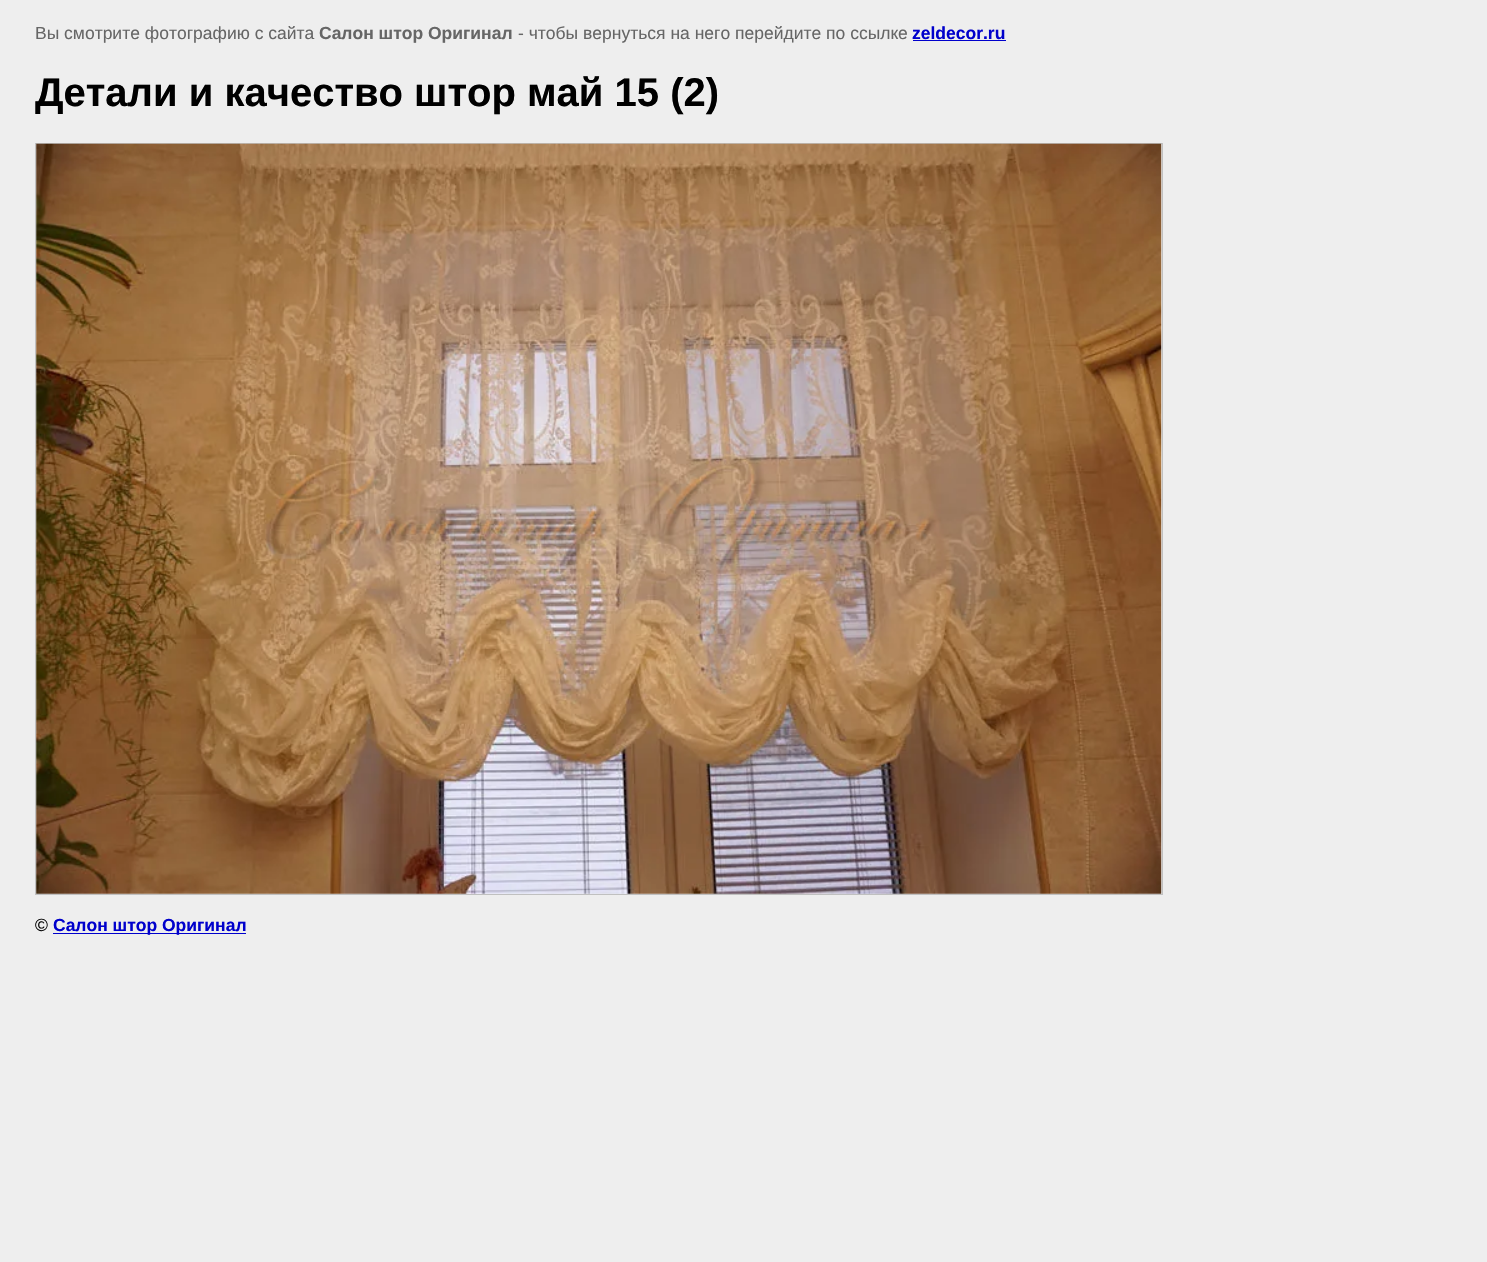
void draw(SkCanvas* c) {
SkPaint p;
p.setAntiAlias(true);
auto F=[&](const char* family, int weight, float size, bool italic = false){SkFontStyle style(weight, SkFontStyle::kNormal_Width,italic ? SkFontStyle::kItalic_Slant : SkFontStyle::kUpright_Slant);SkFont result(fontMgr->matchFamilyStyle(family, style), size);result.setSubpixel(true);return result;};
auto T=[&](const char* s, float x, float y, const SkFont& font){c->drawString(s, x, y, font, p);};
auto R=[&](float x, float y, float w, float h){c->drawRect(SkRect::MakeXYWH(x, y, w, h), p);};
auto I=[&](const char* path, float x, float y, float w, float h){auto image = SkImages::DeferredFromEncodedData(SkData::MakeFromFileName(path));c->drawImageRect(image, SkRect::MakeXYWH(x, y, w, h), SkSamplingOptions());};
c->clear(0xffeeeeee);
auto f1 = F("Liberation Sans",400,17.5);
p.setColor(0xff666666);
T("Вы смотрите фотографию с сайта",35,39,f1);
auto f2 = F("Liberation Sans",700,17.5);
T("Салон штор Оригинал",319,39,f2);
T("- чтобы вернуться на него перейдите по ссылке",518,39,f1);
p.setColor(0xff0000cc);
T("zeldecor.ru",912,39,f2);
R(913,40,93,1);
auto f3 = F("Liberation Sans",700,40);
p.setColor(0xff000000);
T("Детали и качество штор май 15 (2)",35,106,f3);
p.setStroke(true);
p.setStrokeWidth(1);
p.setColor(0xffc0c0c0);
c->drawRect(SkRect::MakeXYWH(35.5,143.5,1127,751),p);
I("1.png",36,143,1126,751);
p.setStroke(false);
p.setColor(0xff000000);
T("©",35,931,f1);
p.setColor(0xff0000cc);
R(53,933,193,1);
T("Салон штор Оригинал",53,931,f2);
}
